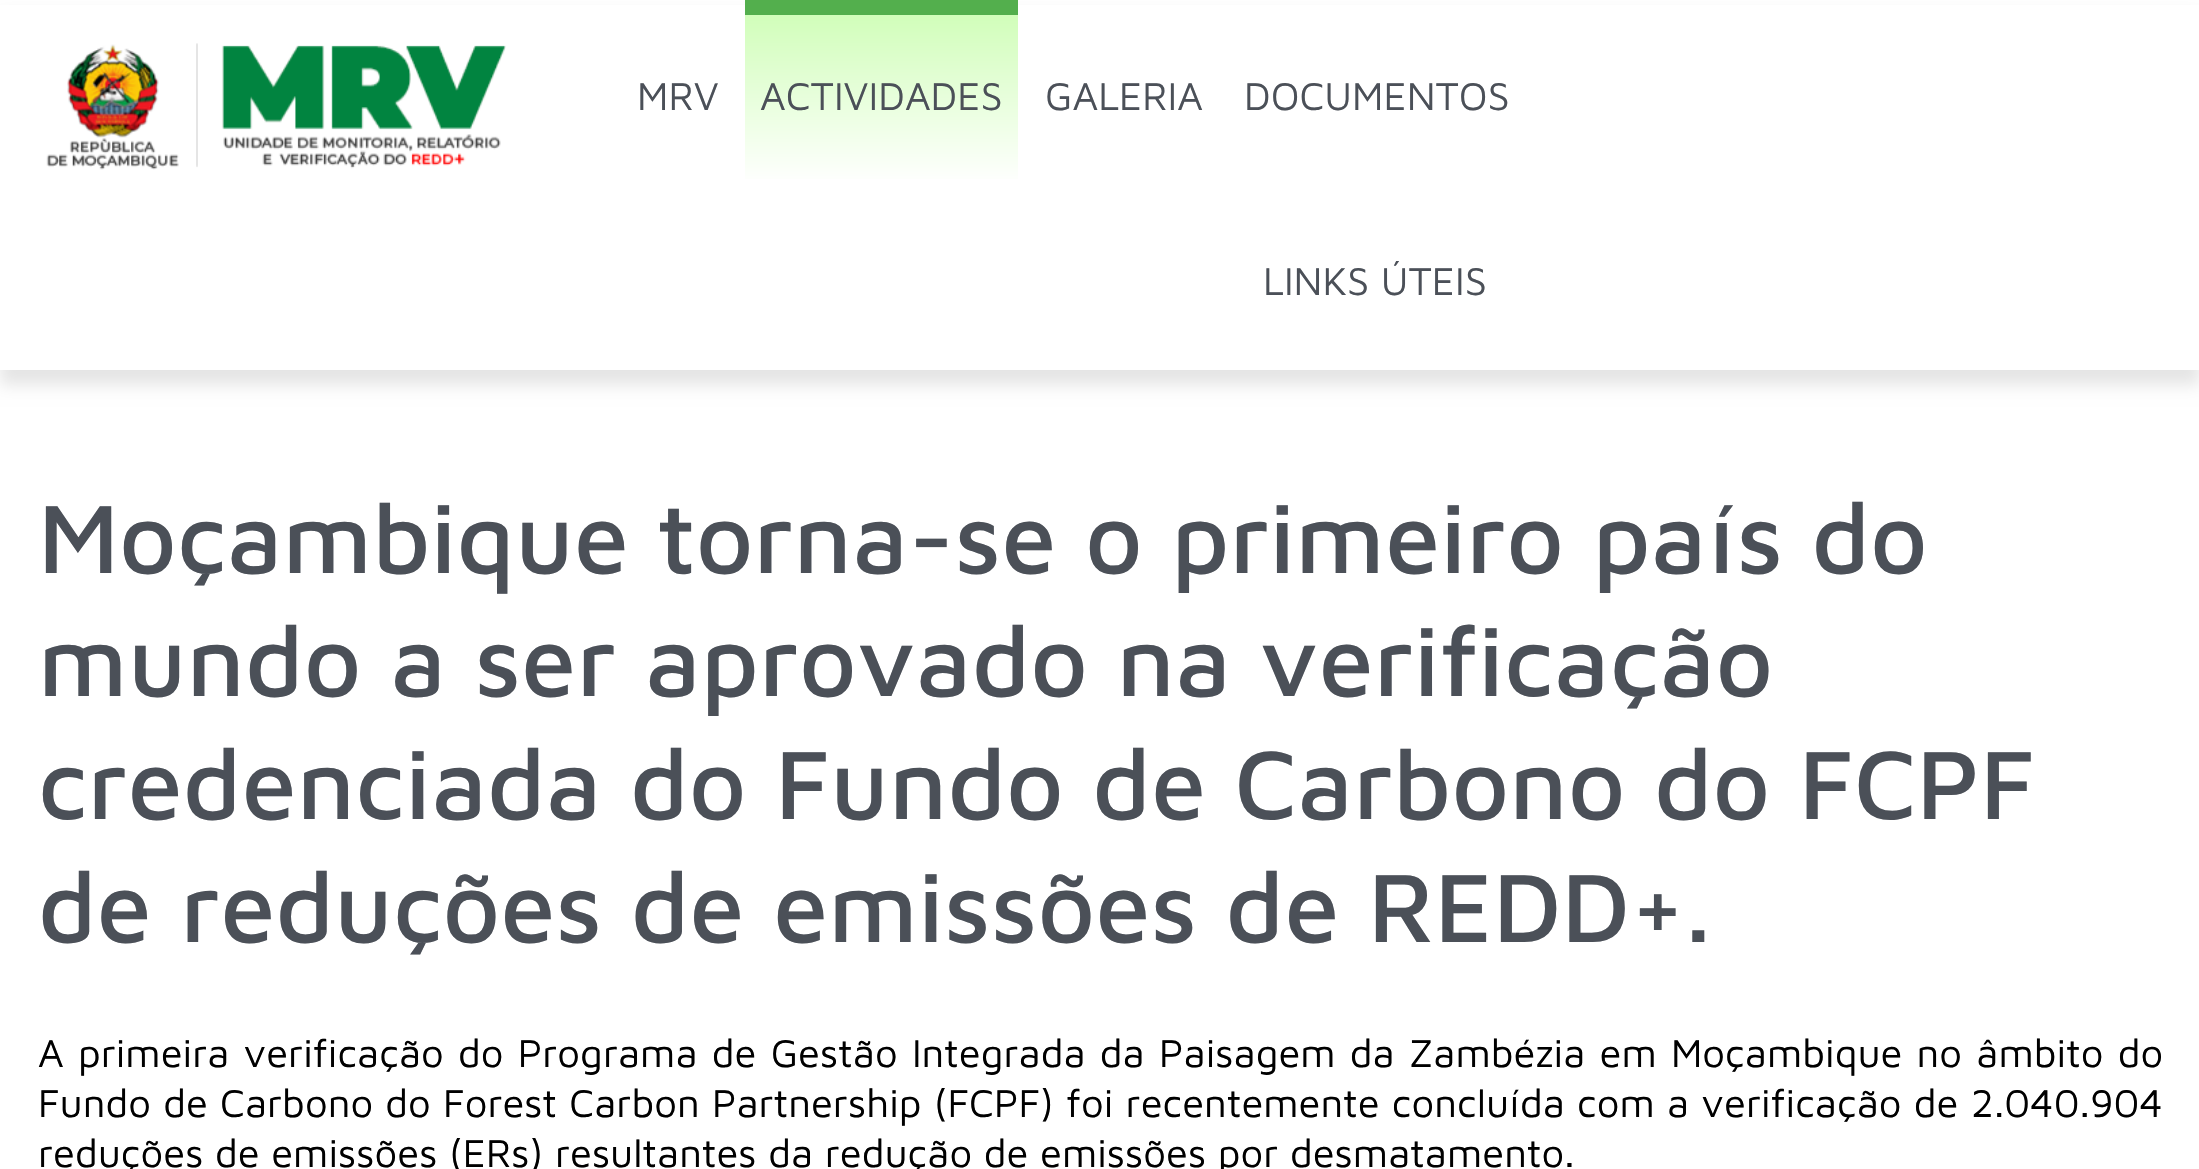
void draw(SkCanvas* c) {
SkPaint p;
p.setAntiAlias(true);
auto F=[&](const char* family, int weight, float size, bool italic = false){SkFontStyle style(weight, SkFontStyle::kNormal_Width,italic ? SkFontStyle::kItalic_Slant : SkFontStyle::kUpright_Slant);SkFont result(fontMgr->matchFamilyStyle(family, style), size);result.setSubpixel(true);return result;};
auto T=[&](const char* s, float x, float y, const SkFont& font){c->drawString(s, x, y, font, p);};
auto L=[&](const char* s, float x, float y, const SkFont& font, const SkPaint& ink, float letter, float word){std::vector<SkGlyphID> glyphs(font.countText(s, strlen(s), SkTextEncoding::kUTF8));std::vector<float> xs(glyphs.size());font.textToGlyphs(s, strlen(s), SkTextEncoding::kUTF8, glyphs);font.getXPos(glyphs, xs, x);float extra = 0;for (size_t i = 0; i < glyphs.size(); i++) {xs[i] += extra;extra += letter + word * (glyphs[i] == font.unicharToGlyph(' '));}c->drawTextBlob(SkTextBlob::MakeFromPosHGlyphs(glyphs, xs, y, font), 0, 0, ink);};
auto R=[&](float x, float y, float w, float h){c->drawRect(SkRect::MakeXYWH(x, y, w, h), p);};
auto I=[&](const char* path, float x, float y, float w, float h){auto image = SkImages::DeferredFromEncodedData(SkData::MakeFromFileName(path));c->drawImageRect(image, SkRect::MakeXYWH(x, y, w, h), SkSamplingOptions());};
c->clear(0xffffffff);
p.setColor(0x1a000000);
p.setMaskFilter(SkMaskFilter::MakeBlur(kNormal_SkBlurStyle, 7.5));
c->drawRect(SkRect::MakeXYWH(0,15,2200,370),p);
p.setMaskFilter(nullptr);
p.setColor(0xffffffff);
R(0,5,2199,365);
I("1.png",46,43,460,127);
auto f1 = F("Maven Pro",400,40);
p.setColor(0xff4b5058);
T("MRV",637,110,f1);
p.setColor(0xff53af4d);
R(745,0,273,15);
{
const SkColor colors[] = {0xffd1feba,0xffffffff};
const float stops[] = {0,1};
const SkPoint ends[] = {{881,15}, {881,185}};
p.setShader(SkGradientShader::MakeLinear(ends, colors, stops, 2, SkTileMode::kClamp));
p.setAlpha(255);
}
R(745,15,273,164);
p.setShader(nullptr);
p.setColor(0xff4b5058);
T("ACTIVIDADES",760,110,f1);
T("GALERIA",1045,110,f1);
T("DOCUMENTOS",1244,110,f1);
T("LINKS ÚTEIS",1263,295,f1);
auto f2 = F("Maven Pro",500,100);
T("Moçambique torna-se o primeiro país do",38,573,f2);
T("mundo a ser aprovado na verificação",38,696,f2);
T("credenciada do Fundo de Carbono do FCPF",38,819,f2);
T("de reduções de emissões de REDD+.",38,942,f2);
p.setColor(0xff000000);
L("A primeira verificação do Programa de Gestão Integrada da Paisagem da Zambézia em Moçambique no âmbito do",38,1067,f1,p,0,2.6);
L("Fundo de Carbono do Forest Carbon Partnership (FCPF) foi recentemente concluída com a verificação de 2.040.904",38,1117,f1,p,0,.6);
T("reduções de emissões (ERs) resultantes da redução de emissões por desmatamento.",38,1167,f1);
}
